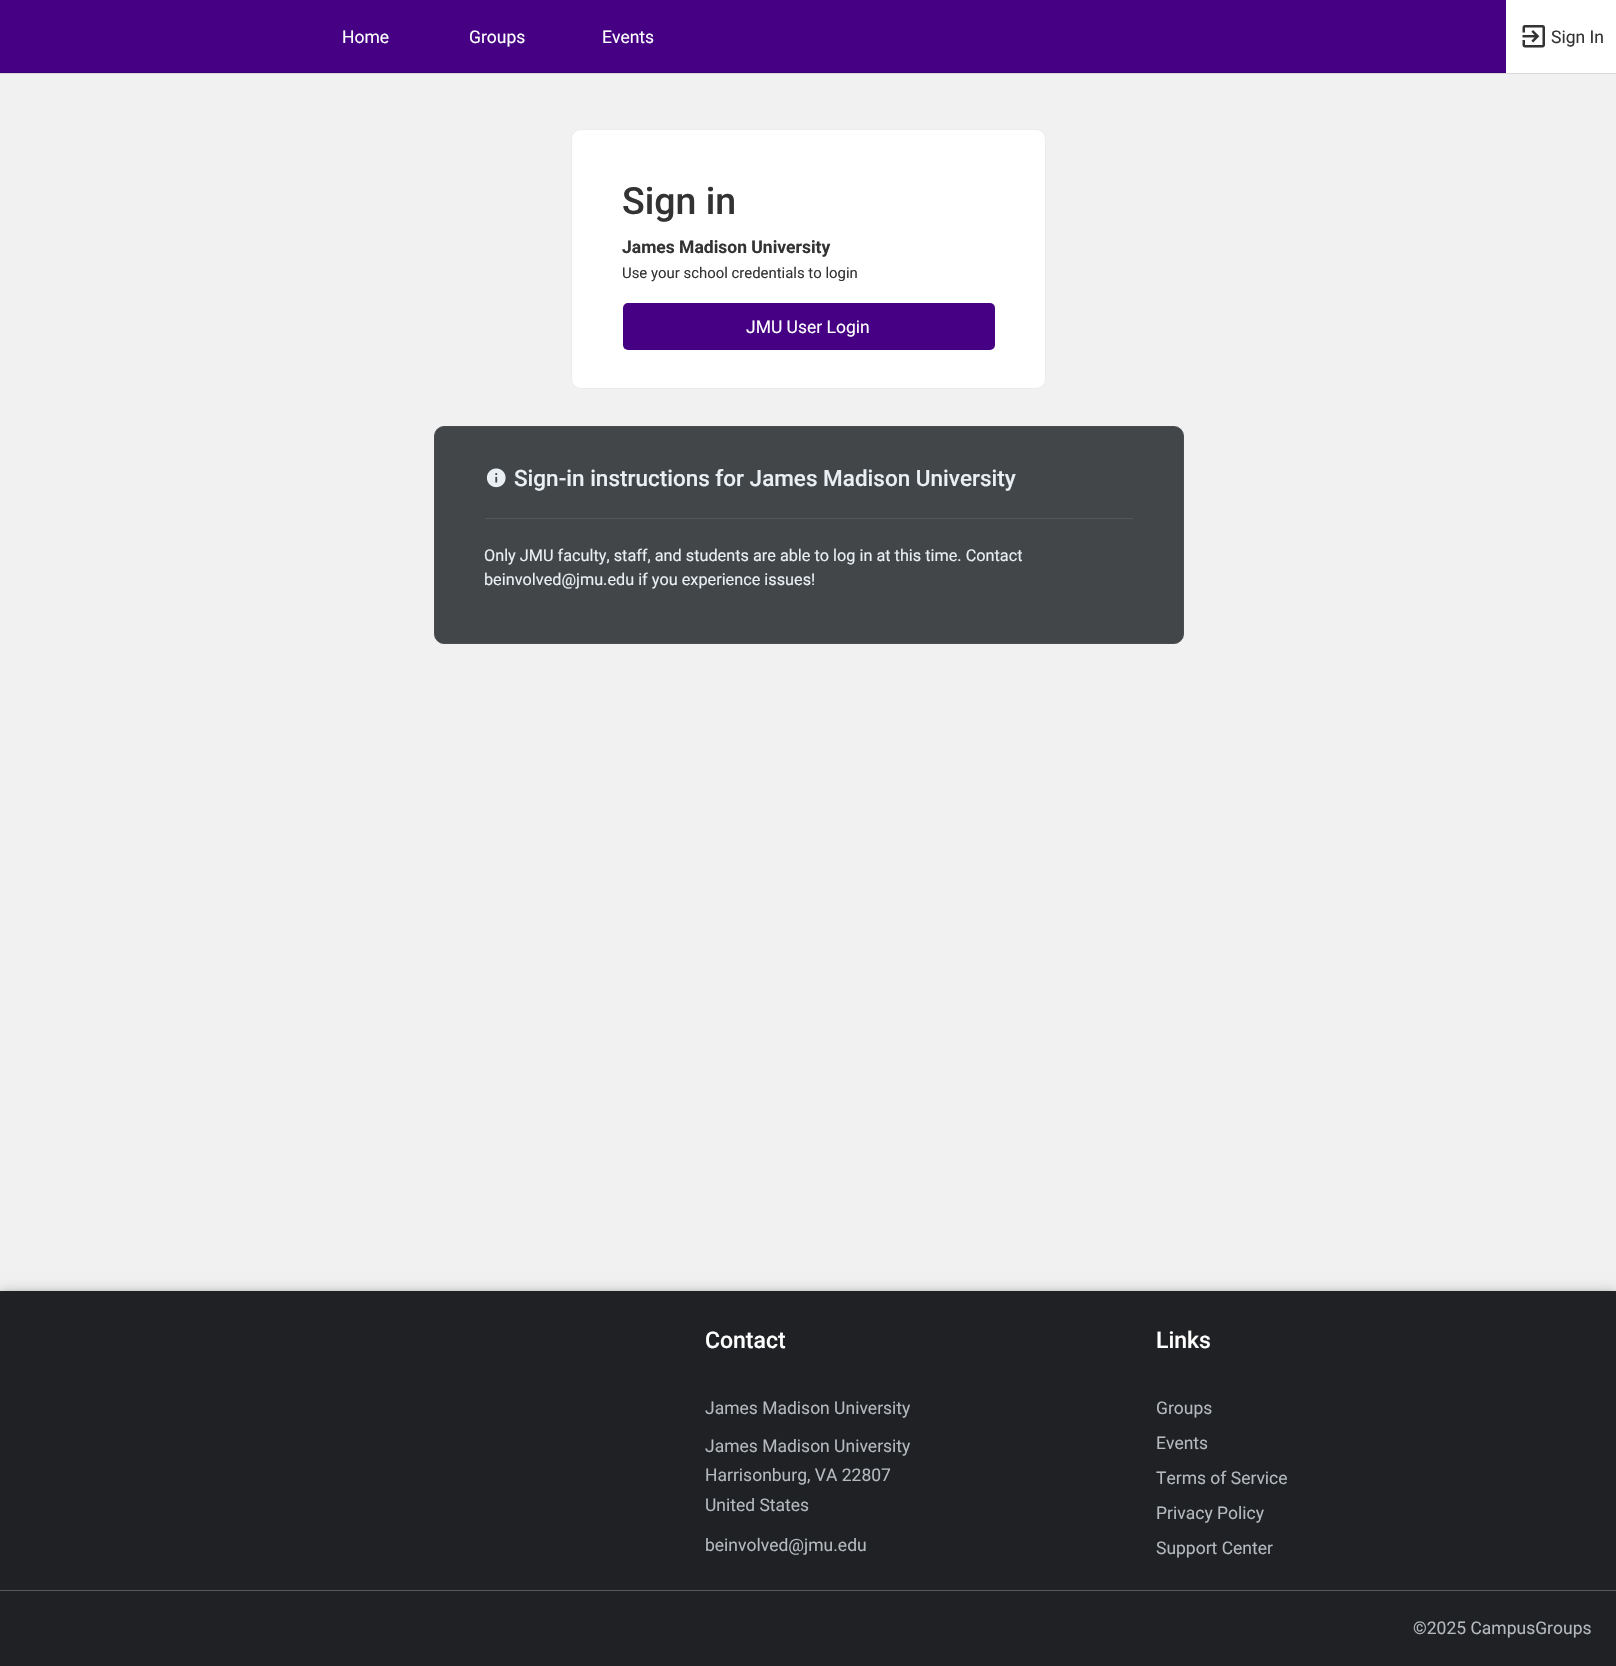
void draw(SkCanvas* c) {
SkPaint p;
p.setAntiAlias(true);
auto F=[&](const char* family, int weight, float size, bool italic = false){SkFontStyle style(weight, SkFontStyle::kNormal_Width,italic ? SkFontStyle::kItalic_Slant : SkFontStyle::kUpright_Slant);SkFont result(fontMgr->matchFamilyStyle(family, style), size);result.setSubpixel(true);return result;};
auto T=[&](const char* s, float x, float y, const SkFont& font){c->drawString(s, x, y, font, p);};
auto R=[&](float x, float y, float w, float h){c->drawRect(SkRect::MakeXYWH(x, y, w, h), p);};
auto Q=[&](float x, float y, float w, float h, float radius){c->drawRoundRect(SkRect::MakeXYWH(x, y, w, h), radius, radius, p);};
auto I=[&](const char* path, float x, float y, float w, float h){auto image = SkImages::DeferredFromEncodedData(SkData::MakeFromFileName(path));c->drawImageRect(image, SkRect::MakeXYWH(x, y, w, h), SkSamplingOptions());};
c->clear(0xfff1f1f1);
p.setColor(0xff450084);
R(0,0,1506,72);
p.setColor(0xff3e0077);
R(0,72,1506,1);
auto f1 = F("Roboto",400,17.5);
p.setColor(0xffffffff);
T("Home",342,43,f1);
T("Groups",469,43,f1);
T("Events",602,43,f1);
R(1506,0,110,73);
I("1.png",1522,25,23,23);
p.setColor(0xff333333);
T("Sign In",1551,43,f1);
p.setColor(0xffd9d9d9);
R(0,73,1616,1);
p.setColor(0xffffffff);
c->drawRoundRect(SkRect::MakeXYWH(571.5,129.5,474,259),9.5,9.5,p);
p.setStroke(true);
p.setStrokeWidth(1);
p.setColor(0xffececec);
c->drawRoundRect(SkRect::MakeXYWH(571.5,129.5,474,259),9.5,9.5,p);
auto f2 = F("Roboto",500,37.5);
p.setStroke(false);
p.setColor(0xff333333);
T("Sign in",622,214,f2);
auto f3 = F("Roboto",700,17.5);
T("James Madison University",622,253,f3);
auto f4 = F("Roboto",400,14.9);
T("Use your school credentials to login",622,278,f4);
p.setColor(0xff450084);
Q(623,303,372,47,5);
p.setColor(0xffffffff);
T("JMU User Login",746,333,f1);
p.setColor(0xff424649);
c->drawRoundRect(SkRect::MakeXYWH(434.5,426.5,749,217),9.5,9.5,p);
p.setStroke(true);
p.setColor(0xff4b4e51);
c->drawRoundRect(SkRect::MakeXYWH(434.5,426.5,749,217),9.5,9.5,p);
I("2.png",486,468,20,20);
auto f5 = F("Roboto",500,22.5);
p.setStroke(false);
p.setColor(0xffeaeff3);
T("Sign-in instructions for James Madison University",514,486,f5);
p.setColor(0xff53575a);
R(485,518,648,1);
auto f6 = F("Roboto",400,16.25);
p.setColor(0xffeaeff3);
T("Only JMU faculty, staff, and students are able to log in at this time. Contact",484,561,f6);
T("beinvolved@jmu.edu if you experience issues!",484,585,f6);
p.setColor(0x24000000);
p.setMaskFilter(SkMaskFilter::MakeBlur(kNormal_SkBlurStyle, 6));
c->drawRect(SkRect::MakeXYWH(0,1290,1616,375),p);
p.setMaskFilter(nullptr);
p.setColor(0x1a000000);
p.setMaskFilter(SkMaskFilter::MakeBlur(kNormal_SkBlurStyle, 2));
c->drawRect(SkRect::MakeXYWH(0,1290,1616,375),p);
p.setMaskFilter(nullptr);
p.setColor(0xff202124);
R(0,1291,1616,375);
auto f7 = F("Roboto",500,23);
p.setColor(0xffffffff);
T("Contact",705,1348,f7);
p.setColor(0xffb3b9bd);
T("James Madison University",705,1414,f1);
T("James Madison University",705,1452,f1);
T("Harrisonburg, VA 22807",705,1481,f1);
T("United States",705,1511,f1);
T("beinvolved@jmu.edu",705,1551,f1);
p.setColor(0xffffffff);
T("Links",1156,1348,f7);
p.setColor(0xffb3b9bd);
T("Groups",1156,1414,f1);
T("Events",1156,1449,f1);
T("Terms of Service",1156,1484,f1);
T("Privacy Policy",1156,1519,f1);
T("Support Center",1156,1554,f1);
p.setColor(0xff5a5a5a);
R(0,1590,1616,1);
p.setColor(0xffb3b9bd);
T("©2025 CampusGroups",1413,1634,f1);
}
